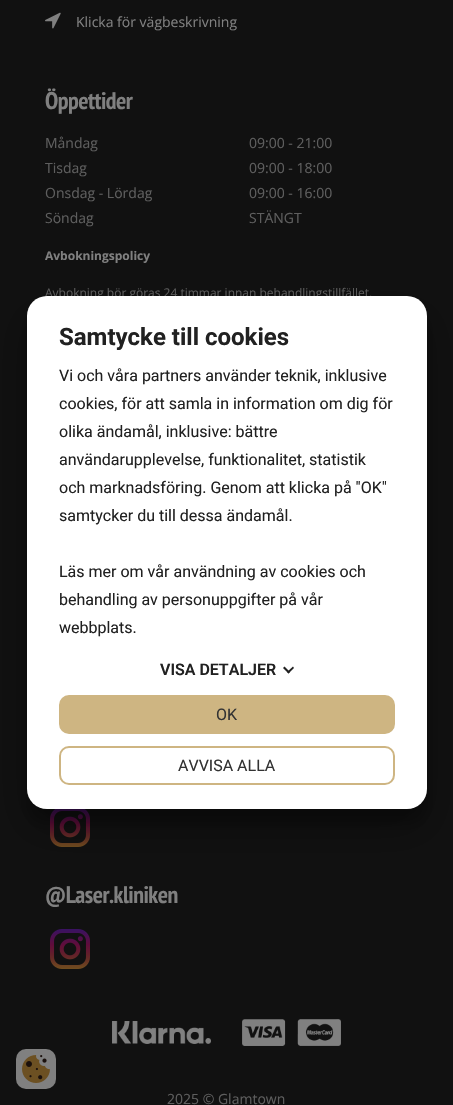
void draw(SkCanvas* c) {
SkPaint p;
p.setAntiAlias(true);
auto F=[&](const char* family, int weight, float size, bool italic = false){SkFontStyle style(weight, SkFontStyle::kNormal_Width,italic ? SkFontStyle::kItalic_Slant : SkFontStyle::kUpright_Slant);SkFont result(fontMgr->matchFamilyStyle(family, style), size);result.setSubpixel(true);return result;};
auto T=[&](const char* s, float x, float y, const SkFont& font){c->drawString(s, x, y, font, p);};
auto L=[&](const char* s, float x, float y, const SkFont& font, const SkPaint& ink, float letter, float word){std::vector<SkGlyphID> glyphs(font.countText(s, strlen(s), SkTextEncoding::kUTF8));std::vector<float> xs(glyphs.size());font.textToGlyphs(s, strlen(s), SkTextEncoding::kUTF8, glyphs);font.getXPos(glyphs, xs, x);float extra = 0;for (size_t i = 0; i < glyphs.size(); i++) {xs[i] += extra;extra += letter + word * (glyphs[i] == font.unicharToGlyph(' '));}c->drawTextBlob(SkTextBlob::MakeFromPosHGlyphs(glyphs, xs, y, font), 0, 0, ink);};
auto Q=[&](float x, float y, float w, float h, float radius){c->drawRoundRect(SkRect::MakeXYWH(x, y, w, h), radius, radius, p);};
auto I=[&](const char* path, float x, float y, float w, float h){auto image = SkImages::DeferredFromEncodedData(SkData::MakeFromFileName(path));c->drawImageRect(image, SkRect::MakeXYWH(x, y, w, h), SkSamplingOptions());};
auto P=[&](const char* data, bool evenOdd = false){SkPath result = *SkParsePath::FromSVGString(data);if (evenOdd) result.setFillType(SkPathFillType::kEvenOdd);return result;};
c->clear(0xff111111);
I("1.png",45,12,16,17);
auto f1 = F("Open Sans",400,14);
p.setColor(0xff808080);
T("Klicka för vägbeskrivning",76,27,f1);
auto f2 = F("PT Sans Narrow",700,24);
L("Öppettider",45,109,f2,p,-.5,0);
p.setColor(0xff5e5e5e);
T("Måndag",45,148,f1);
T("09:00 - 21:00",249,148,f1);
T("Tisdag",45,173,f1);
T("09:00 - 18:00",249,173,f1);
T("Onsdag - Lördag",45,198,f1);
T("09:00 - 16:00",249,198,f1);
T("Söndag",45,223,f1);
T("STÄNGT",249,223,f1);
auto f3 = F("Open Sans",700,12);
p.setColor(0xff808080);
T("Avbokningspolicy",45,260,f3);
auto f4 = F("Open Sans",400,12);
p.setColor(0xff5e5e5e);
T("Avbokning bör göras 24 timmar innan behandlingstillfället.",45,297,f4);
I("2.png",50,809,40,38);
p.setColor(0xff808080);
L("@Laser.kliniken",45,903,f2,p,-.5,0);
I("3.png",50,929,40,40);
I("4.png",112,1021,99,23);
I("5.png",242,1019,99,27);
p.setColor(0xff5e5e5e);
T("2025 © Glamtown",167,1104,f1);
p.setColor(0x38000000);
p.setMaskFilter(SkMaskFilter::MakeBlur(kNormal_SkBlurStyle, 6));
c->drawRoundRect(SkRect::MakeXYWH(27,311,400,513),20,20,p);
p.setMaskFilter(nullptr);
p.setColor(0x4d000000);
p.setMaskFilter(SkMaskFilter::MakeBlur(kNormal_SkBlurStyle, 19));
c->drawRoundRect(SkRect::MakeXYWH(27,315,400,513),20,20,p);
p.setMaskFilter(nullptr);
p.setColor(0xffffffff);
Q(27,296,400,513,20);
auto f5 = F("Roboto",700,24);
p.setColor(0xff212121);
T("Samtycke till cookies",59,345,f5);
auto f6 = F("Roboto",400,16);
T("Vi och våra partners använder teknik, inklusive",59,381,f6);
T("cookies, för att samla in information om dig för",59,409,f6);
T("olika ändamål, inklusive: bättre",59,437,f6);
T("användarupplevelse, funktionalitet, statistik",59,465,f6);
T("och marknadsföring. Genom att klicka på \"OK\"",59,493,f6);
T("samtycker du till dessa ändamål.",59,521,f6);
T("Läs mer om vår användning av cookies och",59,577,f6);
T("behandling av personuppgifter på vår",59,605,f6);
T("webbplats.",59,633,f6);
auto f7 = F("Roboto",600,16);
T("VISA DETALJER",160,675,f7);
c->drawPath(P("M293 666.5l1 1.5l-5.5 5.5l-1.5-1.5z"),p);
c->drawPath(P("M284.5 666.5l5.5 5.5l-1.5 1.5l-5.5-5.5z"),p);
p.setColor(0xffceb582);
c->drawRoundRect(SkRect::MakeXYWH(60,696,334,37),9,9,p);
p.setStroke(true);
p.setStrokeWidth(2);
c->drawRoundRect(SkRect::MakeXYWH(60,696,334,37),9,9,p);
p.setStroke(false);
p.setColor(0xff333333);
T("OK",216,720,f6);
p.setStroke(true);
p.setColor(0xffceb582);
c->drawRoundRect(SkRect::MakeXYWH(60,747,334,37),9,9,p);
p.setStroke(false);
p.setColor(0xff333333);
T("AVVISA ALLA",178,771,f6);
p.setColor(0xff808080);
Q(16,1049,40,40,10);
I("6.png",22,1055,28,28);
}
